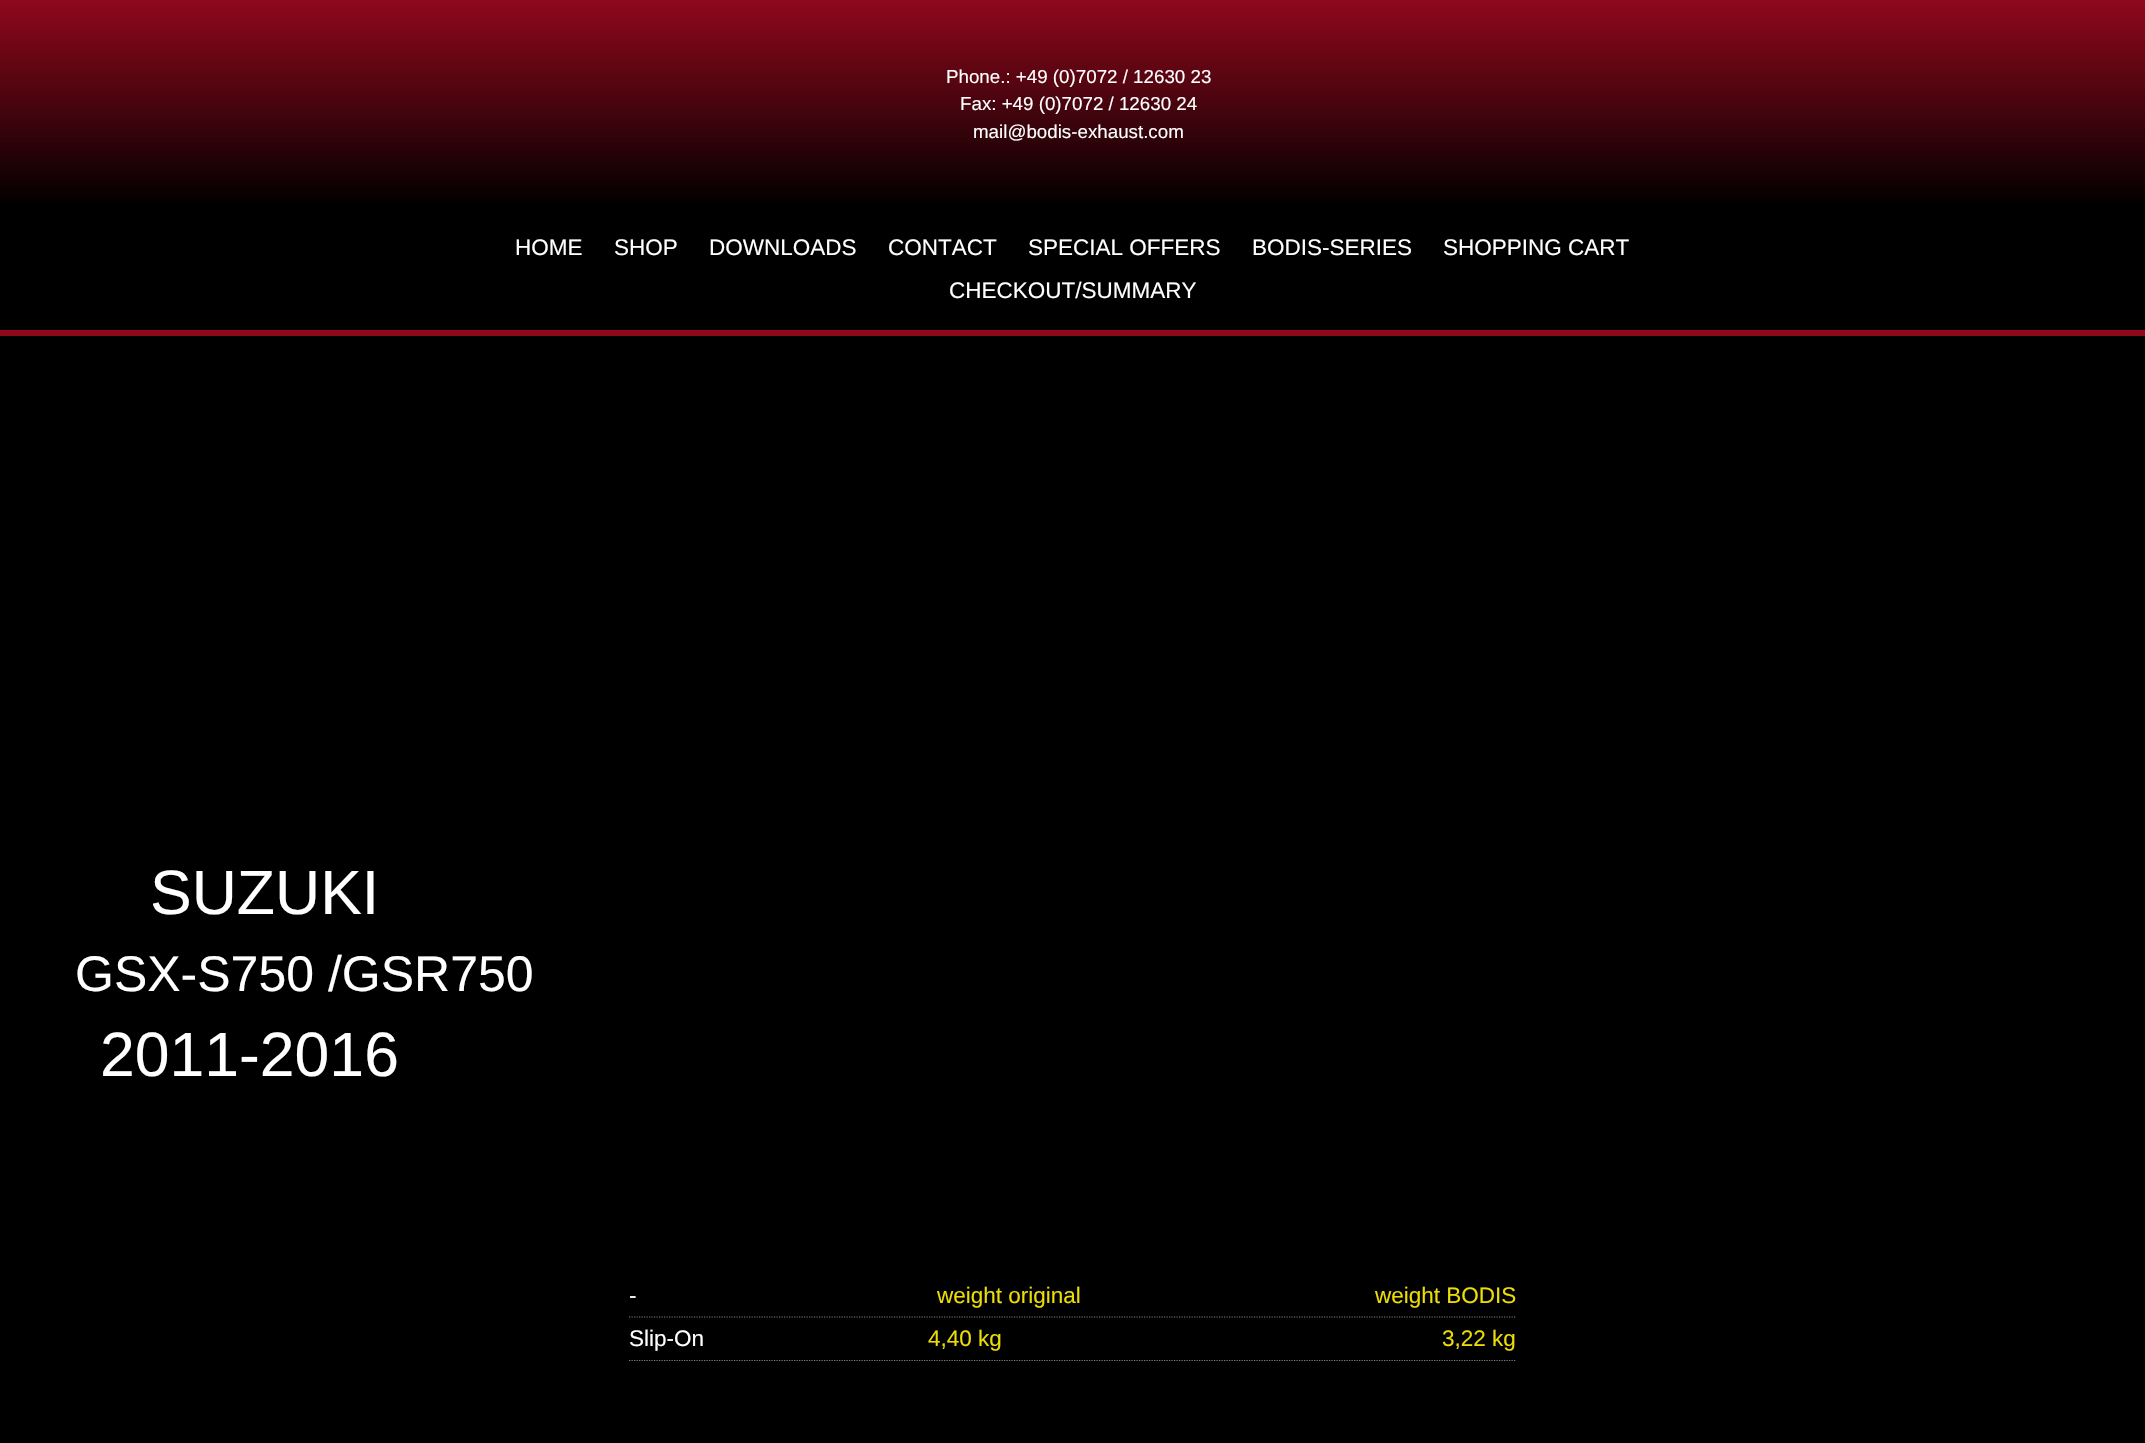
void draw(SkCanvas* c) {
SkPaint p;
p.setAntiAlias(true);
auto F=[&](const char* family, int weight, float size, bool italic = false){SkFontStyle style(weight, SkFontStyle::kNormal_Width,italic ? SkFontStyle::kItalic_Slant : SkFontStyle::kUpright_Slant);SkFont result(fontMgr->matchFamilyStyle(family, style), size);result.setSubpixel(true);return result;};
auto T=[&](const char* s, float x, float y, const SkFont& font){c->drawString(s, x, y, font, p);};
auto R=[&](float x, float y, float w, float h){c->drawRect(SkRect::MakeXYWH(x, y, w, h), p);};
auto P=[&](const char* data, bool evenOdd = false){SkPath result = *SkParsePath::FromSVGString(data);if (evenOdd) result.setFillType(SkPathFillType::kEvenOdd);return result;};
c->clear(0xff000000);
{
const SkColor colors[] = {0xff8f081c,0xff000000};
const float stops[] = {0,1};
const SkPoint ends[] = {{1073,0}, {1073,208}};
p.setShader(SkGradientShader::MakeLinear(ends, colors, stops, 2, SkTileMode::kClamp));
p.setAlpha(255);
}
R(0,0,2145,204);
auto f1 = F("Liberation Sans",400,18.75);
p.setShader(nullptr);
p.setColor(0xffffffff);
T("Phone.: +49 (0)7072 / 12630 23",946,83,f1);
T("Fax: +49 (0)7072 / 12630 24",960,110,f1);
T("mail@bodis-exhaust.com",973,138,f1);
p.setColor(0xff8f081c);
R(0,330,2145,6);
auto f2 = F("Liberation Sans",400,22.5);
p.setColor(0xffffffff);
T("HOME",515,255,f2);
T("SHOP",614,255,f2);
T("DOWNLOADS",709,255,f2);
T("CONTACT",888,255,f2);
T("SPECIAL OFFERS",1028,255,f2);
T("BODIS-SERIES",1252,255,f2);
T("SHOPPING CART",1443,255,f2);
T("CHECKOUT/SUMMARY",949,298,f2);
auto f3 = F("Liberation Sans",400,62.5);
T("SUZUKI",150,914,f3);
auto f4 = F("Liberation Sans",400,50);
T("GSX-S750 /GSR750",75,991,f4);
T("2011-2016",100,1076,f3);
p.setStroke(true);
p.setStrokeWidth(1.2);
p.setColor(0xff808080);
p.setPathEffect(SkDashPathEffect::Make({{1.25f,1.25f}}, 0));
c->drawPath(P("M629 1317h887"),p);
p.setPathEffect(nullptr);
p.setStroke(false);
p.setColor(0xffffffff);
T("-",629,1303,f2);
p.setColor(0xffecdc08);
T("weight original",937,1303,f2);
T("weight BODIS",1375,1303,f2);
p.setStroke(true);
p.setColor(0xff808080);
p.setPathEffect(SkDashPathEffect::Make({{1.25f,1.25f}}, 0));
c->drawPath(P("M629 1360.5h887"),p);
p.setPathEffect(nullptr);
p.setStroke(false);
p.setColor(0xffffffff);
T("Slip-On",629,1346,f2);
p.setColor(0xffecdc08);
T("4,40 kg",928,1346,f2);
T("3,22 kg",1442,1346,f2);
}
